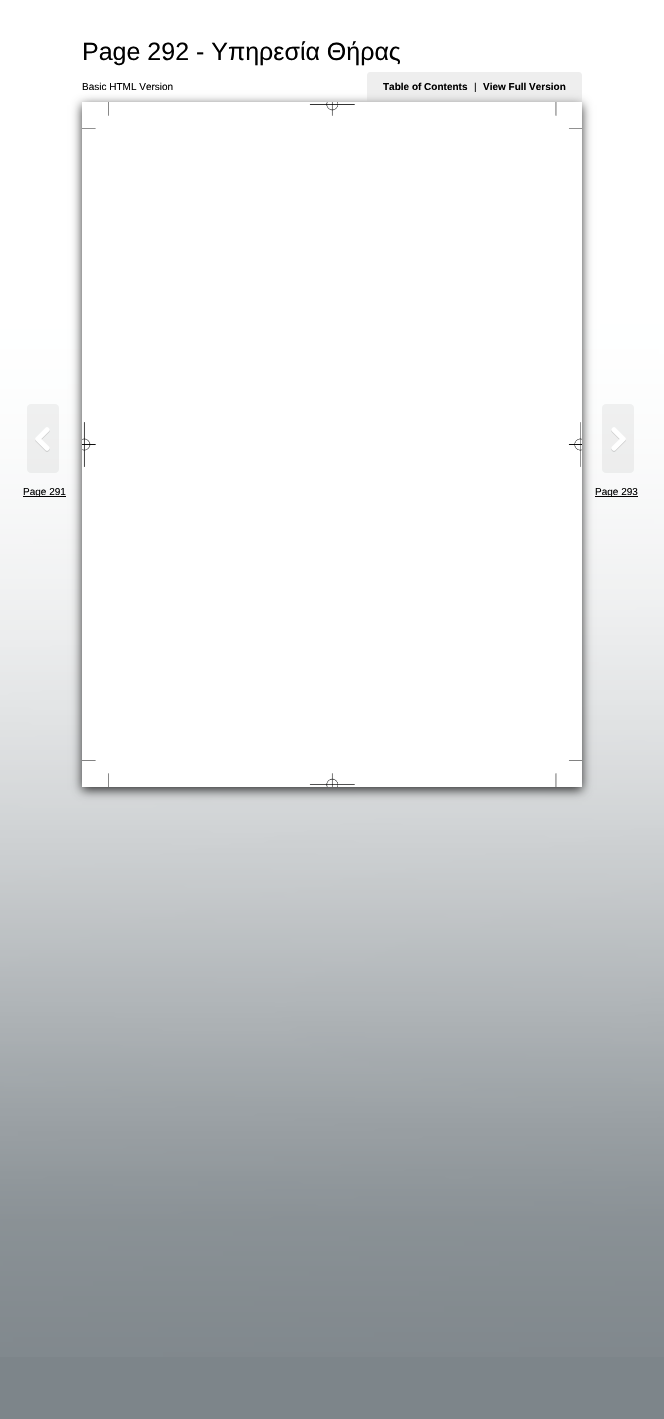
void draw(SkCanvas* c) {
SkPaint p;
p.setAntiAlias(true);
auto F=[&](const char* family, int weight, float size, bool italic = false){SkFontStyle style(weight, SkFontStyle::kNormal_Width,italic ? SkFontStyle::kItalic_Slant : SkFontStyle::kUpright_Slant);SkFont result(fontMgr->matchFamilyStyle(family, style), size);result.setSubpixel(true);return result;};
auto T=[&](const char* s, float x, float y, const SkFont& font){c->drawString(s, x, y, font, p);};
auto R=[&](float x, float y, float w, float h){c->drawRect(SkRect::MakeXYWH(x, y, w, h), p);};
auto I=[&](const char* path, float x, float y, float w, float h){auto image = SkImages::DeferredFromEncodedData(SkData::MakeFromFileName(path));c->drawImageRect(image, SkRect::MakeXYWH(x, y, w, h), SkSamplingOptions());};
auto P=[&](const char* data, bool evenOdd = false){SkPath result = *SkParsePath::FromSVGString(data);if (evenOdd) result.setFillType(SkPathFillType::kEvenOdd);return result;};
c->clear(0xff7d858a);
I("1.png",0,0,664,1357);
auto f1 = F("Liberation Sans",400,25);
p.setColor(0xff000000);
T("Page 292 - Υπηρεσία Θήρας",82,60,f1);
auto f2 = F("Liberation Sans",400,10);
T("Basic HTML Version",82,90,f2);
p.setColor(0xcc000000);
p.setMaskFilter(SkMaskFilter::MakeBlur(kNormal_SkBlurStyle, 5));
c->drawRect(SkRect::MakeXYWH(82,105,500,685),p);
p.setMaskFilter(nullptr);
p.setColor(0x4dc8c8c8);
c->drawPath(P("M370 72h209c1.5 0 3 1.5 3 3v27h-215v-27c0-1.5 1.5-3 3-3z"),p);
auto f3 = F("Liberation Sans",700,10);
p.setColor(0xff000000);
T("Table of Contents",383,90,f3);
T("|",474,90,f2);
T("View Full Version",483,90,f3);
I("2.png",82,102,500,685);
I("3.png",27,404,32,69);
R(23,496,43,1);
T("Page 291",23,495,f2);
I("4.png",602,404,32,69);
R(595,496,43,1);
T("Page 293",595,495,f2);
}
